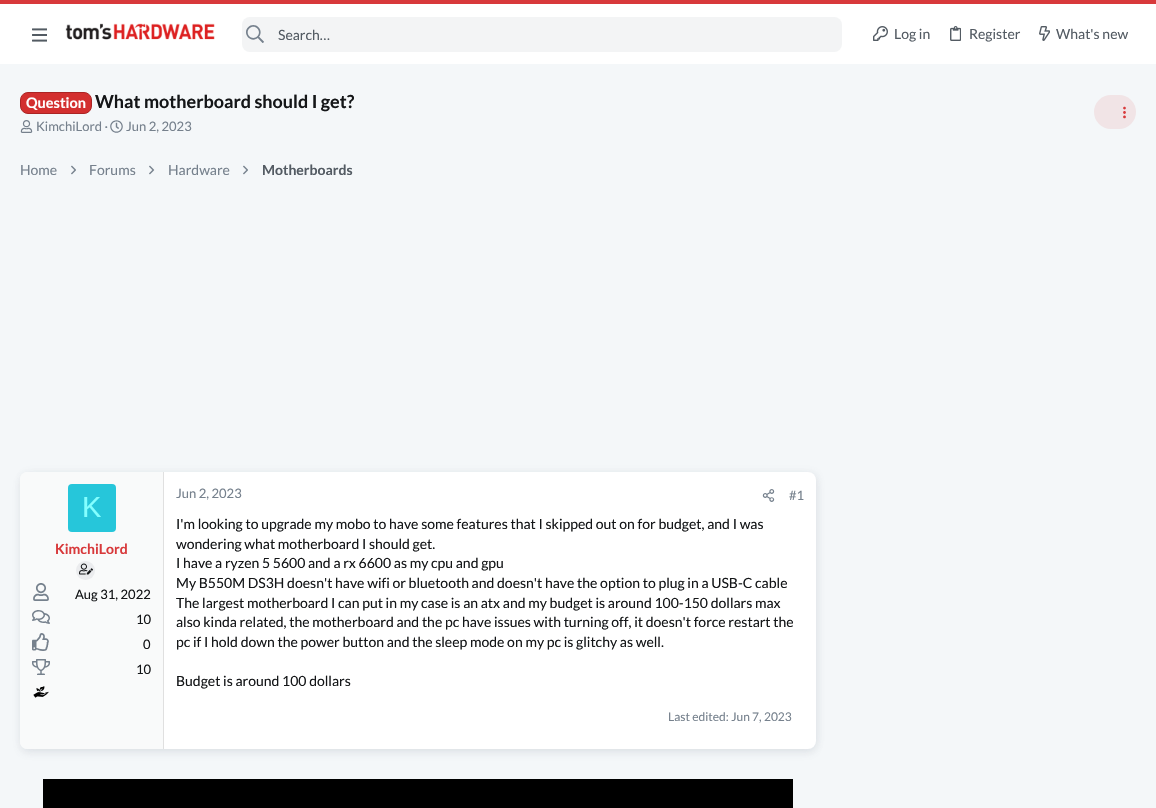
void draw(SkCanvas* c) {
SkPaint p;
p.setAntiAlias(true);
auto F=[&](const char* family, int weight, float size, bool italic = false){SkFontStyle style(weight, SkFontStyle::kNormal_Width,italic ? SkFontStyle::kItalic_Slant : SkFontStyle::kUpright_Slant);SkFont result(fontMgr->matchFamilyStyle(family, style), size);result.setSubpixel(true);return result;};
auto T=[&](const char* s, float x, float y, const SkFont& font){c->drawString(s, x, y, font, p);};
auto R=[&](float x, float y, float w, float h){c->drawRect(SkRect::MakeXYWH(x, y, w, h), p);};
auto Q=[&](float x, float y, float w, float h, float radius){c->drawRoundRect(SkRect::MakeXYWH(x, y, w, h), radius, radius, p);};
auto I=[&](const char* path, float x, float y, float w, float h){auto image = SkImages::DeferredFromEncodedData(SkData::MakeFromFileName(path));c->drawImageRect(image, SkRect::MakeXYWH(x, y, w, h), SkSamplingOptions());};
auto P=[&](const char* data, bool evenOdd = false){SkPath result = *SkParsePath::FromSVGString(data);if (evenOdd) result.setFillType(SkPathFillType::kEvenOdd);return result;};
c->clear(0xfff4f7f9);
p.setColor(0xffffffff);
R(0,4,1156,60);
p.setColor(0xffd8393b);
R(0,0,1156,4);
I("1.png",32,28,15,14);
I("2.png",65,23,150,17);
p.setColor(0xfff3f4f5);
Q(242,17,600,35,8);
I("3.png",246,25,18,18);
auto f1 = F("Lato",400,14);
p.setColor(0xff535b63);
T("Search…",278,40,f1);
I("4.png",873,26,15,15);
T("Log in",894,39,f1);
I("5.png",950,26,11,15);
T("Register",969,39,f1);
I("6.png",1039,26,11,15);
T("What's new",1056,39,f1);
p.setColor(0xffd32f2f);
c->drawRoundRect(SkRect::MakeXYWH(20.5,92.5,71,21),7.5,7.5,p);
p.setStroke(true);
p.setStrokeWidth(1);
p.setColor(0xffab2424);
c->drawRoundRect(SkRect::MakeXYWH(20.5,92.5,71,21),7.5,7.5,p);
auto f2 = F("Lato",700,14.5);
p.setStroke(false);
p.setColor(0xffffffff);
T("Question",26,108,f2);
auto f3 = F("Lato",700,18);
p.setColor(0xff141618);
T("What motherboard should I get?",95,108,f3);
I("7.png",20,120,13,13);
auto f4 = F("Lato",400,13);
p.setColor(0xff76818d);
T("KimchiLord ·",36,131,f4);
I("8.png",110,120,13,13);
T("Jun 2, 2023",126,131,f4);
p.setColor(0xfff1e4e6);
Q(1094,95,42,34,17);
I("9.png",1123,106,3,13);
p.setColor(0xff76818d);
T("Home",20,175,f1);
I("10.png",71,165,5,10);
T("Forums",89,175,f1);
I("11.png",149,165,6,10);
T("Hardware",168,175,f1);
I("10.png",243,165,5,10);
auto f5 = F("Lato",700,14);
p.setColor(0xff535b63);
T("Motherboards",262,175,f5);
p.setColor(0x146b7780);
p.setMaskFilter(SkMaskFilter::MakeBlur(kNormal_SkBlurStyle, 4));
c->drawRoundRect(SkRect::MakeXYWH(22,472,796,277),8,8,p);
p.setMaskFilter(nullptr);
p.setColor(0x1f6b7780);
p.setMaskFilter(SkMaskFilter::MakeBlur(kNormal_SkBlurStyle, 4));
c->drawRoundRect(SkRect::MakeXYWH(20,476,796,277),8,8,p);
p.setMaskFilter(nullptr);
p.setColor(0xffffffff);
Q(20,472,796,277,8);
p.setColor(0xfff9fafa);
c->drawPath(P("M27 472h137v277h-137c-4 0-7-3-7-7v-263c0-4 3-7 7-7z"),p);
p.setColor(0xffe0e0e0);
R(163,472,1,277);
p.setColor(0xff26c6da);
Q(68,484,48,48,4);
auto f6 = F("Liberation Sans",400,29);
p.setColor(0xff84ffff);
T("K",82,517,f6);
p.setColor(0xffd8393b);
T("KimchiLord",55,554,f5);
p.setColor(0xffebecee);
c->drawCircle(85.5,570.5,9.5,p);
I("12.png",79,563,14,12);
I("13.png",33,583,16,18);
p.setColor(0xff141618);
T("Aug 31, 2022",75,599,f4);
I("14.png",32,610,18,14);
T("10",136,624,f4);
I("15.png",32,633,17,18);
T("0",143,649,f4);
I("16.png",32,659,18,16);
T("10",136,674,f4);
I("17.png",33,686,16,12);
p.setColor(0xff76818d);
T("Jun 2, 2023",176,498,f4);
I("18.png",762,489,13,13);
T("#1",789,500,f4);
p.setColor(0xff141618);
T("I'm looking to upgrade my mobo to have some features that I skipped out on for budget, and I was",176,529,f1);
T("wondering what motherboard I should get.",176,549,f1);
T("I have a ryzen 5 5600 and a rx 6600 as my cpu and gpu",176,568,f1);
T("My B550M DS3H doesn't have wifi or bluetooth and doesn't have the option to plug in a USB-C cable",176,588,f1);
T("The largest motherboard I can put in my case is an atx and my budget is around 100-150 dollars max",176,608,f1);
T("also kinda related, the motherboard and the pc have issues with turning off, it doesn't force restart the",176,627,f1);
T("pc if I hold down the power button and the sleep mode on my pc is glitchy as well.",176,647,f1);
T("Budget is around 100 dollars",176,686,f1);
auto f7 = F("Lato",400,12);
p.setColor(0xff76818d);
T("Last edited: Jun 7, 2023",668,721,f7);
p.setColor(0xff000000);
R(43,779,750,29);
}
